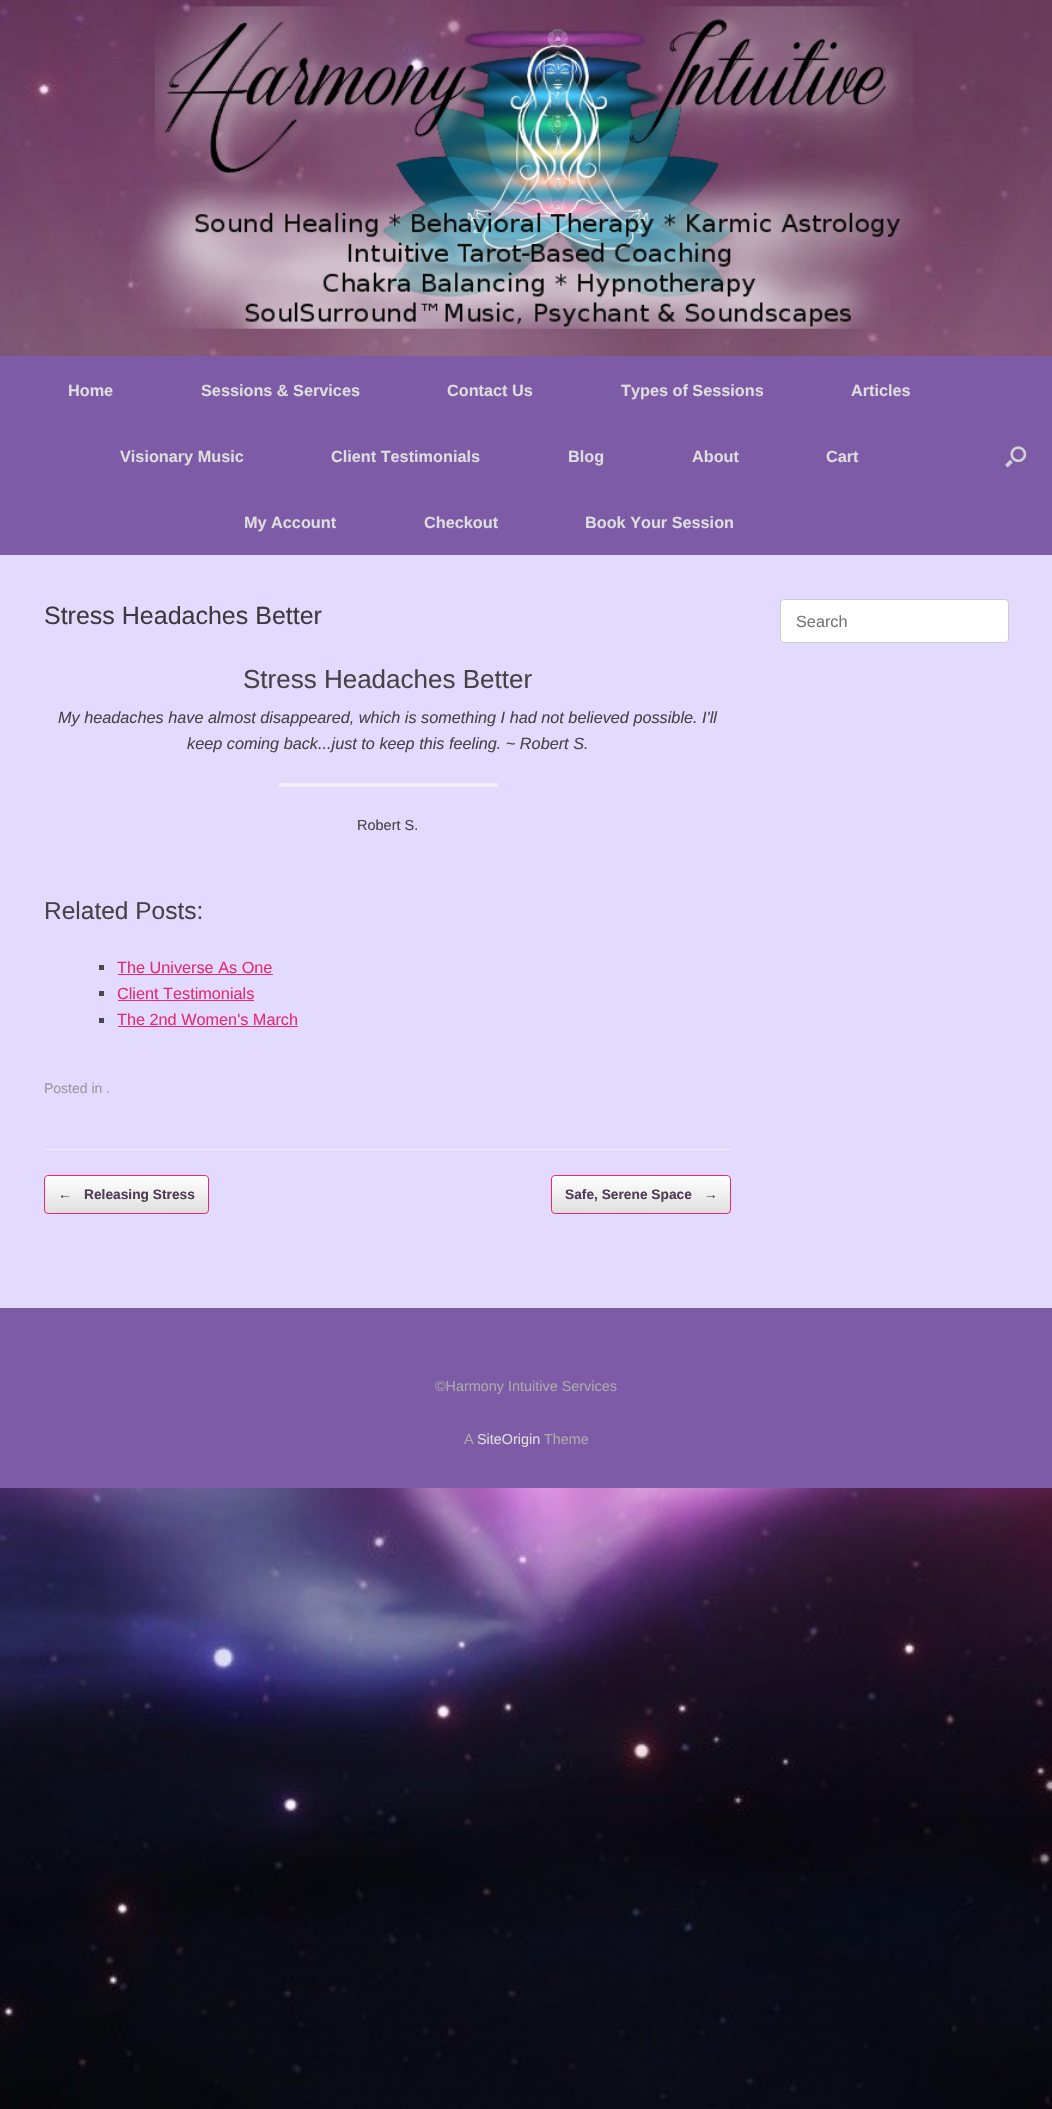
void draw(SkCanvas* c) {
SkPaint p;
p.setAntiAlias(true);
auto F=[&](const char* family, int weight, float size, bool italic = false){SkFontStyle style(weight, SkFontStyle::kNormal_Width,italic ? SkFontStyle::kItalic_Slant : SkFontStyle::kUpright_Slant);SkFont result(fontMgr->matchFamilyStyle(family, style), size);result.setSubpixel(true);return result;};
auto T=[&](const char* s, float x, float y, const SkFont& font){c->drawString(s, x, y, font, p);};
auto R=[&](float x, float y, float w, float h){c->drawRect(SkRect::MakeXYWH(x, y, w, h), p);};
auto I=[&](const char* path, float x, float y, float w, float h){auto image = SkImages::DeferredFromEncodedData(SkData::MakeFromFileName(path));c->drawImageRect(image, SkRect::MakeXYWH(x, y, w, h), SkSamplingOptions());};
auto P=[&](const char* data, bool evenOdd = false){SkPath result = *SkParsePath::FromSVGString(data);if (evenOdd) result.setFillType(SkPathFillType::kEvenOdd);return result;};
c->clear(0xffffffff);
I("1.png",0,0,1052,2109);
I("2.png",130,6,798,323);
p.setColor(0xff7d5ba6);
R(0,356,1052,199);
auto f1 = F("Liberation Sans",700,16.25);
p.setColor(0xffdddddd);
T("Home",68,396,f1);
T("Sessions & Services",201,396,f1);
T("Contact Us",447,396,f1);
T("Types of Sessions",621,396,f1);
T("Articles",851,396,f1);
T("Visionary Music",120,462,f1);
T("Client Testimonials",331,462,f1);
T("Blog",568,462,f1);
T("About",692,462,f1);
T("Cart",826,462,f1);
T("My Account",244,528,f1);
T("Checkout",424,528,f1);
T("Book Your Session",585,528,f1);
I("3.png",1005,446,22,22);
p.setColor(0xffe3dbff);
R(0,555,1052,753);
p.setColor(0xffeeeeee);
R(44,1149,687,1);
auto f2 = F("Liberation Sans",400,25);
p.setColor(0xff3b3b3b);
T("Stress Headaches Better",44,624,f2);
auto f3 = F("Liberation Sans",400,26);
p.setColor(0xff444444);
T("Stress Headaches Better",243,688,f3);
auto f4 = F("Liberation Sans",400,16.25,true);
T("My headaches have almost disappeared, which is something I had not believed possible. I'll",58,723,f4);
T("keep coming back...just to keep this feeling. ~ Robert S.",187,749,f4);
p.setColor(0xffefefef);
R(279,783,219,4);
auto f5 = F("Liberation Sans",400,14.5);
p.setColor(0xff444444);
T("Robert S.",357,830,f5);
auto f6 = F("Liberation Sans",400,24.5);
T("Related Posts:",44,919,f6);
p.setColor(0xff494949);
R(99,965,5,5);
auto f7 = F("Liberation Sans",400,16.25);
p.setColor(0xffe52a6f);
T("The Universe As One",117,973,f7);
R(118,974,155,1);
p.setColor(0xff494949);
R(99,991,5,5);
p.setColor(0xffe52a6f);
T("Client Testimonials",117,999,f7);
R(118,1000,136,1);
p.setColor(0xff494949);
R(99,1018,5,5);
p.setColor(0xffe52a6f);
T("The 2nd Women's March",117,1025,f7);
R(118,1026,180,1);
auto f8 = F("Liberation Sans",400,14);
p.setColor(0xff999999);
T("Posted in .",44,1093,f8);
c->save();
c->clipPath(P("M48 1175h157c2 0 4 2 4 4v31c0 2-2 4-4 4h-157c-2 0-4-2-4-4v-31c0-2 2-4 4-4z"),true);
{
const SkColor colors[] = {0xffdfdfdf,0xffffffff};
const float stops[] = {0,1};
const SkPoint ends[] = {{45,1213}, {45,1176}};
p.setShader(SkGradientShader::MakeLinear(ends, colors, stops, 2, SkTileMode::kClamp));
p.setAlpha(255);
}
R(44,1176,165,37);
c->restore();
p.setStroke(true);
p.setStrokeWidth(1);
p.setShader(nullptr);
p.setColor(0xffe52a6f);
c->drawRoundRect(SkRect::MakeXYWH(44.5,1175.5,164,38),3.5,3.5,p);
auto f9 = F("Liberation Sans",700,13.75);
p.setStroke(false);
p.setColor(0xff513b56);
T("←",58,1199,f9);
T("Releasing Stress",84,1199,f9);
c->save();
c->clipPath(P("M555 1175h172c2 0 4 2 4 4v31c0 2-2 4-4 4h-172c-2 0-4-2-4-4v-31c0-2 2-4 4-4z"),true);
{
const SkColor colors[] = {0xffdfdfdf,0xffffffff};
const float stops[] = {0,1};
const SkPoint ends[] = {{553,1213}, {553,1176}};
p.setShader(SkGradientShader::MakeLinear(ends, colors, stops, 2, SkTileMode::kClamp));
p.setAlpha(255);
}
R(551,1176,180,37);
c->restore();
p.setStroke(true);
p.setShader(nullptr);
p.setColor(0xffe52a6f);
c->drawRoundRect(SkRect::MakeXYWH(551.5,1175.5,179,38),3.5,3.5,p);
p.setStroke(false);
p.setColor(0xff513b56);
T("Safe, Serene Space",565,1199,f9);
T("→",704,1199,f9);
p.setColor(0xffffffff);
c->drawRoundRect(SkRect::MakeXYWH(780.5,599.5,228,43),3.5,3.5,p);
p.setStroke(true);
p.setColor(0xffcccccc);
c->drawRoundRect(SkRect::MakeXYWH(780.5,599.5,228,43),3.5,3.5,p);
p.setStroke(false);
p.setColor(0xff757575);
T("Search",796,627,f7);
p.setColor(0xff7d5ba6);
R(0,1308,1052,180);
auto f10 = F("Liberation Sans",400,14.4);
p.setColor(0xffaaaaaa);
T("©Harmony Intuitive Services",435,1391,f10);
T("A",464,1444,f10);
p.setColor(0xffdddddd);
T("SiteOrigin",477,1444,f10);
p.setColor(0xffaaaaaa);
T("Theme",544,1444,f10);
}
